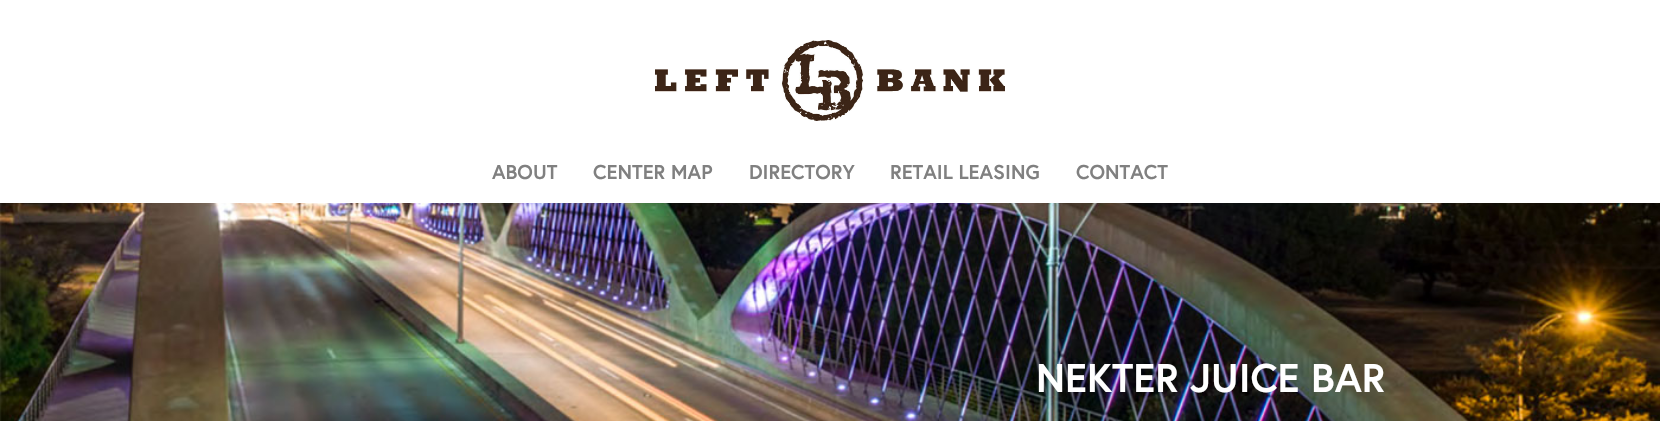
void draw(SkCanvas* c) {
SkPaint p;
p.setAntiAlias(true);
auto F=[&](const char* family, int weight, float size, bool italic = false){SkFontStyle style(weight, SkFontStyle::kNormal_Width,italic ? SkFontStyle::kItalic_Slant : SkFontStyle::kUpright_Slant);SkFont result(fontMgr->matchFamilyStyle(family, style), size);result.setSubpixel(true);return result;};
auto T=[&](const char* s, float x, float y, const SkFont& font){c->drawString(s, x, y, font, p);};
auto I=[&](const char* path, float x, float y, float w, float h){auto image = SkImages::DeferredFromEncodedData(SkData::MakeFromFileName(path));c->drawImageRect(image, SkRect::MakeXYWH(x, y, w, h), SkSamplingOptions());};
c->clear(0xffffffff);
I("1.png",655,40,350,81);
auto f1 = F("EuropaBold",700,20);
p.setColor(0xff808080);
T("ABOUT",492,179,f1);
T("CENTER MAP",593,179,f1);
T("DIRECTORY",749,179,f1);
T("RETAIL LEASING",890,179,f1);
T("CONTACT",1076,179,f1);
I("2.png",0,203,1660,218);
auto f2 = F("EuropaBold",700,40);
p.setColor(0xffffffff);
T("NEKTER JUICE BAR",1036,392,f2);
}
